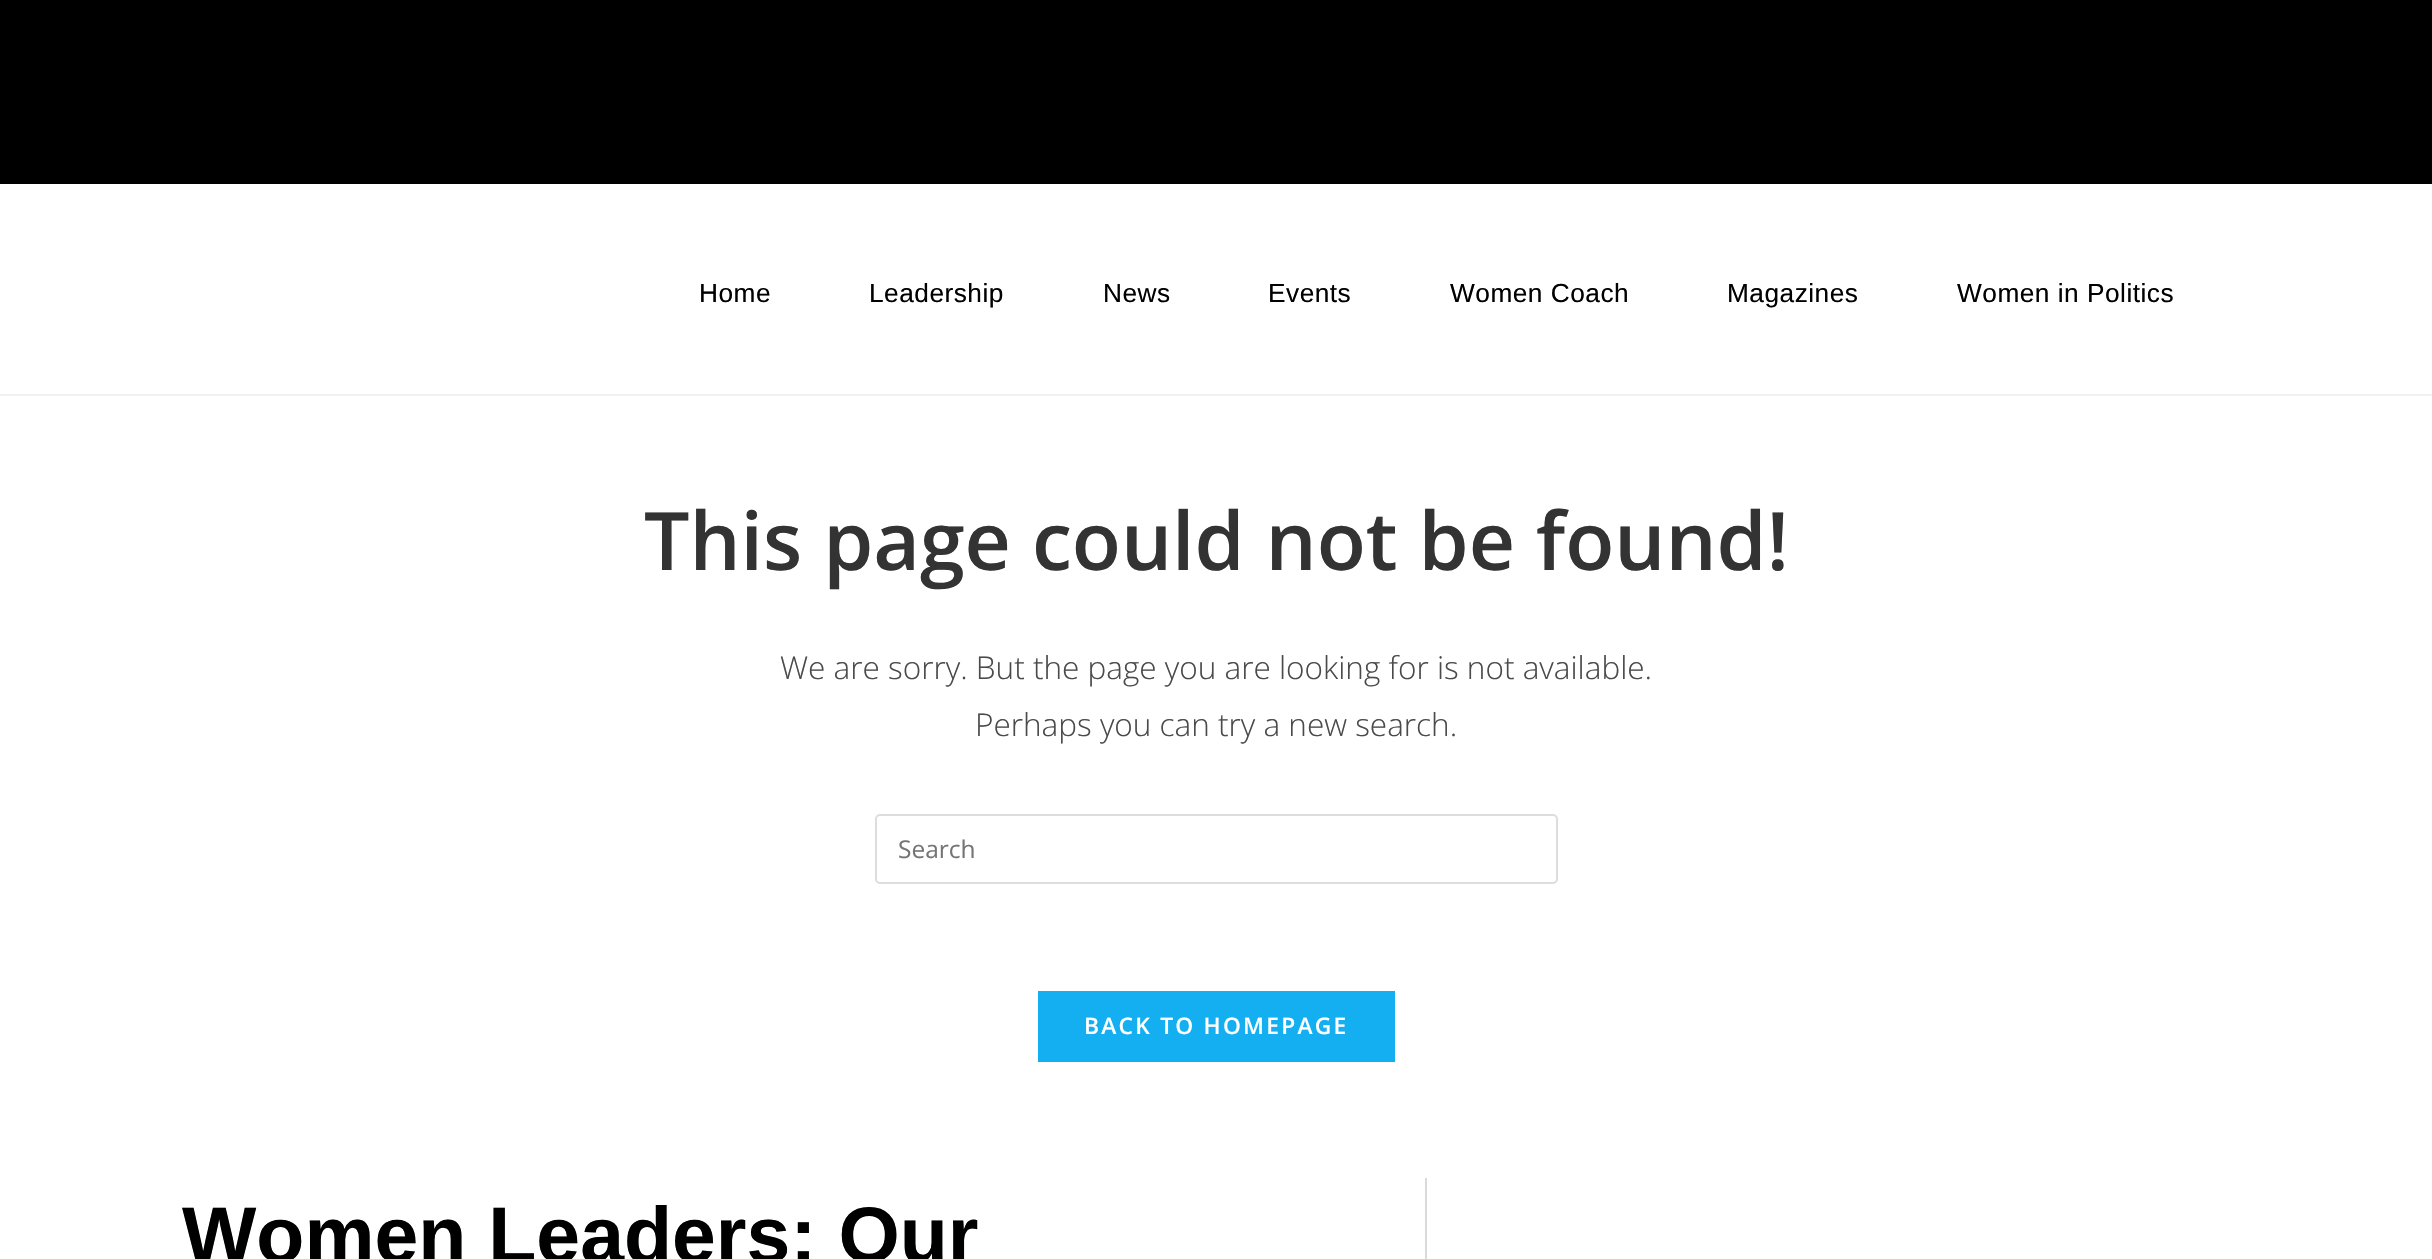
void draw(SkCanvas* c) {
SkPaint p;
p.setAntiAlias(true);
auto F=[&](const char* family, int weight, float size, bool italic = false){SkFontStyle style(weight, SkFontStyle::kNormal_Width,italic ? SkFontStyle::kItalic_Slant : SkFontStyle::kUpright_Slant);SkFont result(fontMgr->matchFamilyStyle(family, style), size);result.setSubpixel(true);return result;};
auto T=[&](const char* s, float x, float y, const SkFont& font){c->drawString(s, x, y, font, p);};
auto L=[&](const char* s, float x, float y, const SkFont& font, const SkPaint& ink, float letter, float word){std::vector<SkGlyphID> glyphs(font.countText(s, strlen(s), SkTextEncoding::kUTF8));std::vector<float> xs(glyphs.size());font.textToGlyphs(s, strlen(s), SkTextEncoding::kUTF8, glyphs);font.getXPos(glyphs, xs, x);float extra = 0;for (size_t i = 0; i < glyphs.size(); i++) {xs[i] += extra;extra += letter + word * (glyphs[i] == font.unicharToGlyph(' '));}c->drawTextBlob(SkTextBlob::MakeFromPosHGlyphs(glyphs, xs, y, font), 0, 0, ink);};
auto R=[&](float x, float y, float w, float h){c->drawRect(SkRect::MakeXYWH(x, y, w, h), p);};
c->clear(0xffffffff);
p.setColor(0xfff1f1f1);
R(0,394,2432,2);
p.setColor(0xff000000);
R(0,0,2432,184);
auto f1 = F("Liberation Sans",400,26.25);
L("Home",699,302,f1,p,.5,0);
L("Leadership",869,302,f1,p,.5,0);
L("News",1103,302,f1,p,.5,0);
L("Events",1268,302,f1,p,.5,0);
L("Women Coach",1450,302,f1,p,.5,0);
L("Magazines",1727,302,f1,p,.5,0);
L("Women in Politics",1957,302,f1,p,.5,0);
auto f2 = F("Open Sans",600,80.5);
p.setColor(0xff333333);
T("This page could not be found!",644,570,f2);
auto f3 = F("Open Sans",300,31.5);
p.setColor(0xff4a4a4a);
T("We are sorry. But the page you are looking for is not available.",780,679,f3);
T("Perhaps you can try a new search.",975,736,f3);
p.setStroke(true);
p.setStrokeWidth(2);
p.setColor(0xffdddddd);
c->drawRoundRect(SkRect::MakeXYWH(876,815,681,68),4,4,p);
auto f4 = F("Open Sans",400,24.5);
p.setStroke(false);
p.setColor(0xff757575);
T("Search",898,858,f4);
p.setColor(0xff13aff0);
R(1038,991,357,71);
auto f5 = F("Open Sans",600,22.75);
p.setColor(0xffffffff);
L("BACK TO HOMEPAGE",1084,1034,f5,p,2.25,0);
p.setColor(0xffdadada);
R(1425,1178,2,81);
auto f6 = F("Liberation Sans",700,78.75);
p.setColor(0xff000000);
T("Women Leaders: Our",182,1262,f6);
}
